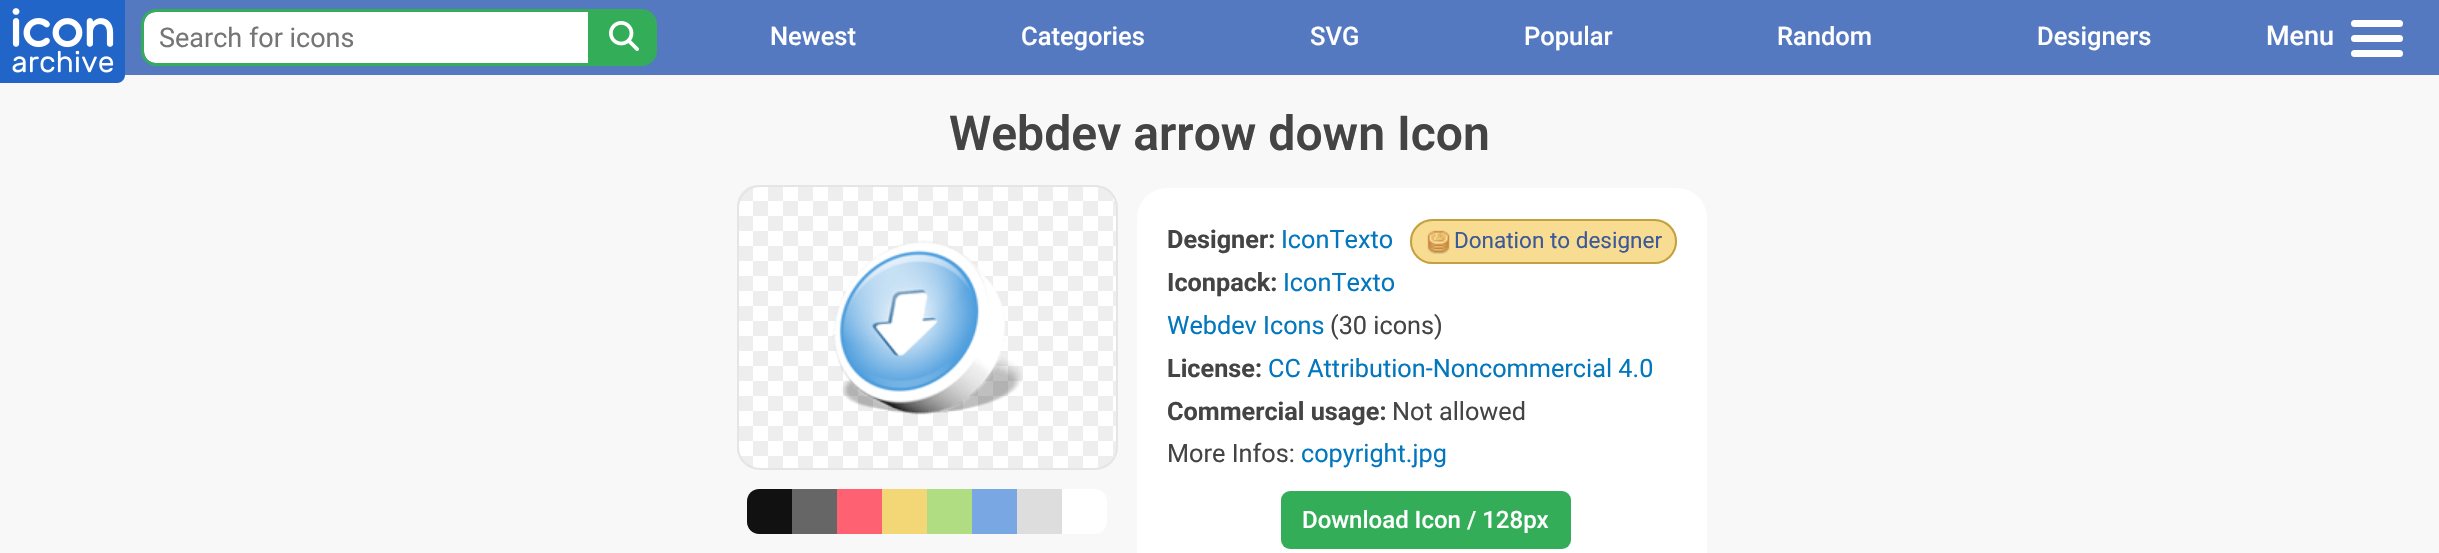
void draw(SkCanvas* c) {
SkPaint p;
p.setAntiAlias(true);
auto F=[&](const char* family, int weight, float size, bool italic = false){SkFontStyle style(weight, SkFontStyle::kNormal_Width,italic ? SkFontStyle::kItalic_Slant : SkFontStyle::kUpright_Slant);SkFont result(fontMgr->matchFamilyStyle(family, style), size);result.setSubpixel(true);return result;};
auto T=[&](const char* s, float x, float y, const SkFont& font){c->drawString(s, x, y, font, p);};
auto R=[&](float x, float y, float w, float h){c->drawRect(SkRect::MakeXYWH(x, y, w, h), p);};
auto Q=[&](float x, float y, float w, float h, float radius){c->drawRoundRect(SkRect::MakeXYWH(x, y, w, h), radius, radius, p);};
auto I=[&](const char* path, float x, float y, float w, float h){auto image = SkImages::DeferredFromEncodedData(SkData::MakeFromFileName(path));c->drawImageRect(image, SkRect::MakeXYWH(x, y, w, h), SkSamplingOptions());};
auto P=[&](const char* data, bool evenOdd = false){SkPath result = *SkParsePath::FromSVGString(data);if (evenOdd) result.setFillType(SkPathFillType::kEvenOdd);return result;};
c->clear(0xfff8f8f8);
p.setColor(0xff5479c1);
R(125,0,2314,75);
I("1.png",0,0,125,83);
p.setColor(0xffffffff);
c->drawPath(P("M156 12h432v51h-432c-6.5 0-12-5.5-12-12v-27c0-6.5 5.5-12 12-12z"),p);
p.setColor(0xff34ad59);
c->drawPath(P("M156 9h432v57h-432c-8 0-15-7-15-15v-27c0-8 7-15 15-15zm0 3h432v51h-432c-7 0-12-5-12-12v-27c0-7 5-12 12-12z",true),p);
auto f1 = F("Roboto",400,27);
p.setColor(0xff757575);
T("Search for icons",159,47,f1);
p.setColor(0xff34ad59);
c->drawPath(P("M588 12h54c6.5 0 12 5.5 12 12v27c0 6.5-5.5 12-12 12h-54z"),p);
c->drawPath(P("M588 9h54c8 0 15 7 15 15v27c0 8-7 15-15 15h-54zm0 3h54c7 0 12 5 12 12v27c0 7-5 12-12 12h-54z",true),p);
I("2.png",609,21,30,30);
auto f2 = F("Roboto",500,25.5);
p.setColor(0xffffffff);
T("Newest",770,45,f2);
T("Categories",1021,45,f2);
T("SVG",1310,45,f2);
T("Popular",1524,45,f2);
T("Random",1777,45,f2);
T("Designers",2037,45,f2);
auto f3 = F("Roboto",500,27);
T("Menu",2266,45,f3);
Q(2351,20,52,7,3.5);
Q(2351,35,52,7,3.5);
Q(2351,50,52,7,3.5);
auto f4 = F("Roboto",600,48.1);
p.setColor(0xff444444);
T("Webdev arrow down Icon",949,150,f4);
I("3.png",737,185,380,284);
p.setStroke(true);
p.setStrokeWidth(2);
p.setColor(0xffe5e5e5);
c->drawRoundRect(SkRect::MakeXYWH(738,186,379,283),22,22,p);
I("4.png",832,240,191,175);
p.setStroke(false);
p.setColor(0xff111111);
c->drawPath(P("M759 489h33v45h-33c-6.5 0-12-5.5-12-12v-21c0-6.5 5.5-12 12-12z"),p);
p.setColor(0xff666666);
R(792,489,45,45);
p.setColor(0xfffe6171);
R(837,489,45,45);
p.setColor(0xfff3d776);
R(882,489,45,45);
p.setColor(0xffb0dc82);
R(927,489,45,45);
p.setColor(0xff79a7e4);
R(972,489,45,45);
p.setColor(0xffdddddd);
R(1017,489,45,45);
p.setColor(0xffffffff);
c->drawPath(P("M1062 489h33c6.5 0 12 5.5 12 12v21c0 6.5-5.5 12-12 12h-33z"),p);
Q(1137,188,570,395,30);
auto f5 = F("Roboto",700,25.25);
p.setColor(0xff444444);
T("Designer:",1167,248,f5);
auto f6 = F("Roboto",400,25.25);
p.setColor(0xff0277bd);
T("IconTexto",1281,248,f6);
p.setColor(0xfff7dc91);
Q(1410,219,267,45,22.5);
I("5.png",1427,230,23,24);
p.setStroke(true);
p.setColor(0xffc3a141);
c->drawRoundRect(SkRect::MakeXYWH(1411,220,265,43),21.5,21.5,p);
auto f7 = F("Roboto",400,22.5);
p.setStroke(false);
p.setColor(0xff3b5998);
T("Donation to designer",1454,248,f7);
p.setColor(0xff444444);
T("Iconpack:",1167,291,f5);
p.setColor(0xff0277bd);
T("IconTexto",1283,291,f6);
T("Webdev Icons",1167,334,f6);
p.setColor(0xff444444);
T("(30 icons)",1330,334,f6);
T("License:",1167,377,f5);
p.setColor(0xff0277bd);
T("CC Attribution-Noncommercial 4.0",1268,377,f6);
p.setColor(0xff444444);
T("Commercial usage:",1167,420,f5);
T("Not allowed",1392,420,f6);
T("More Infos:",1167,462,f6);
p.setColor(0xff0277bd);
T("copyright.jpg",1301,462,f6);
p.setColor(0xff34ad59);
Q(1281,491,290,58,9);
auto f8 = F("Roboto",500,24);
p.setColor(0xffffffff);
T("Download Icon / 128px",1302,528,f8);
}
